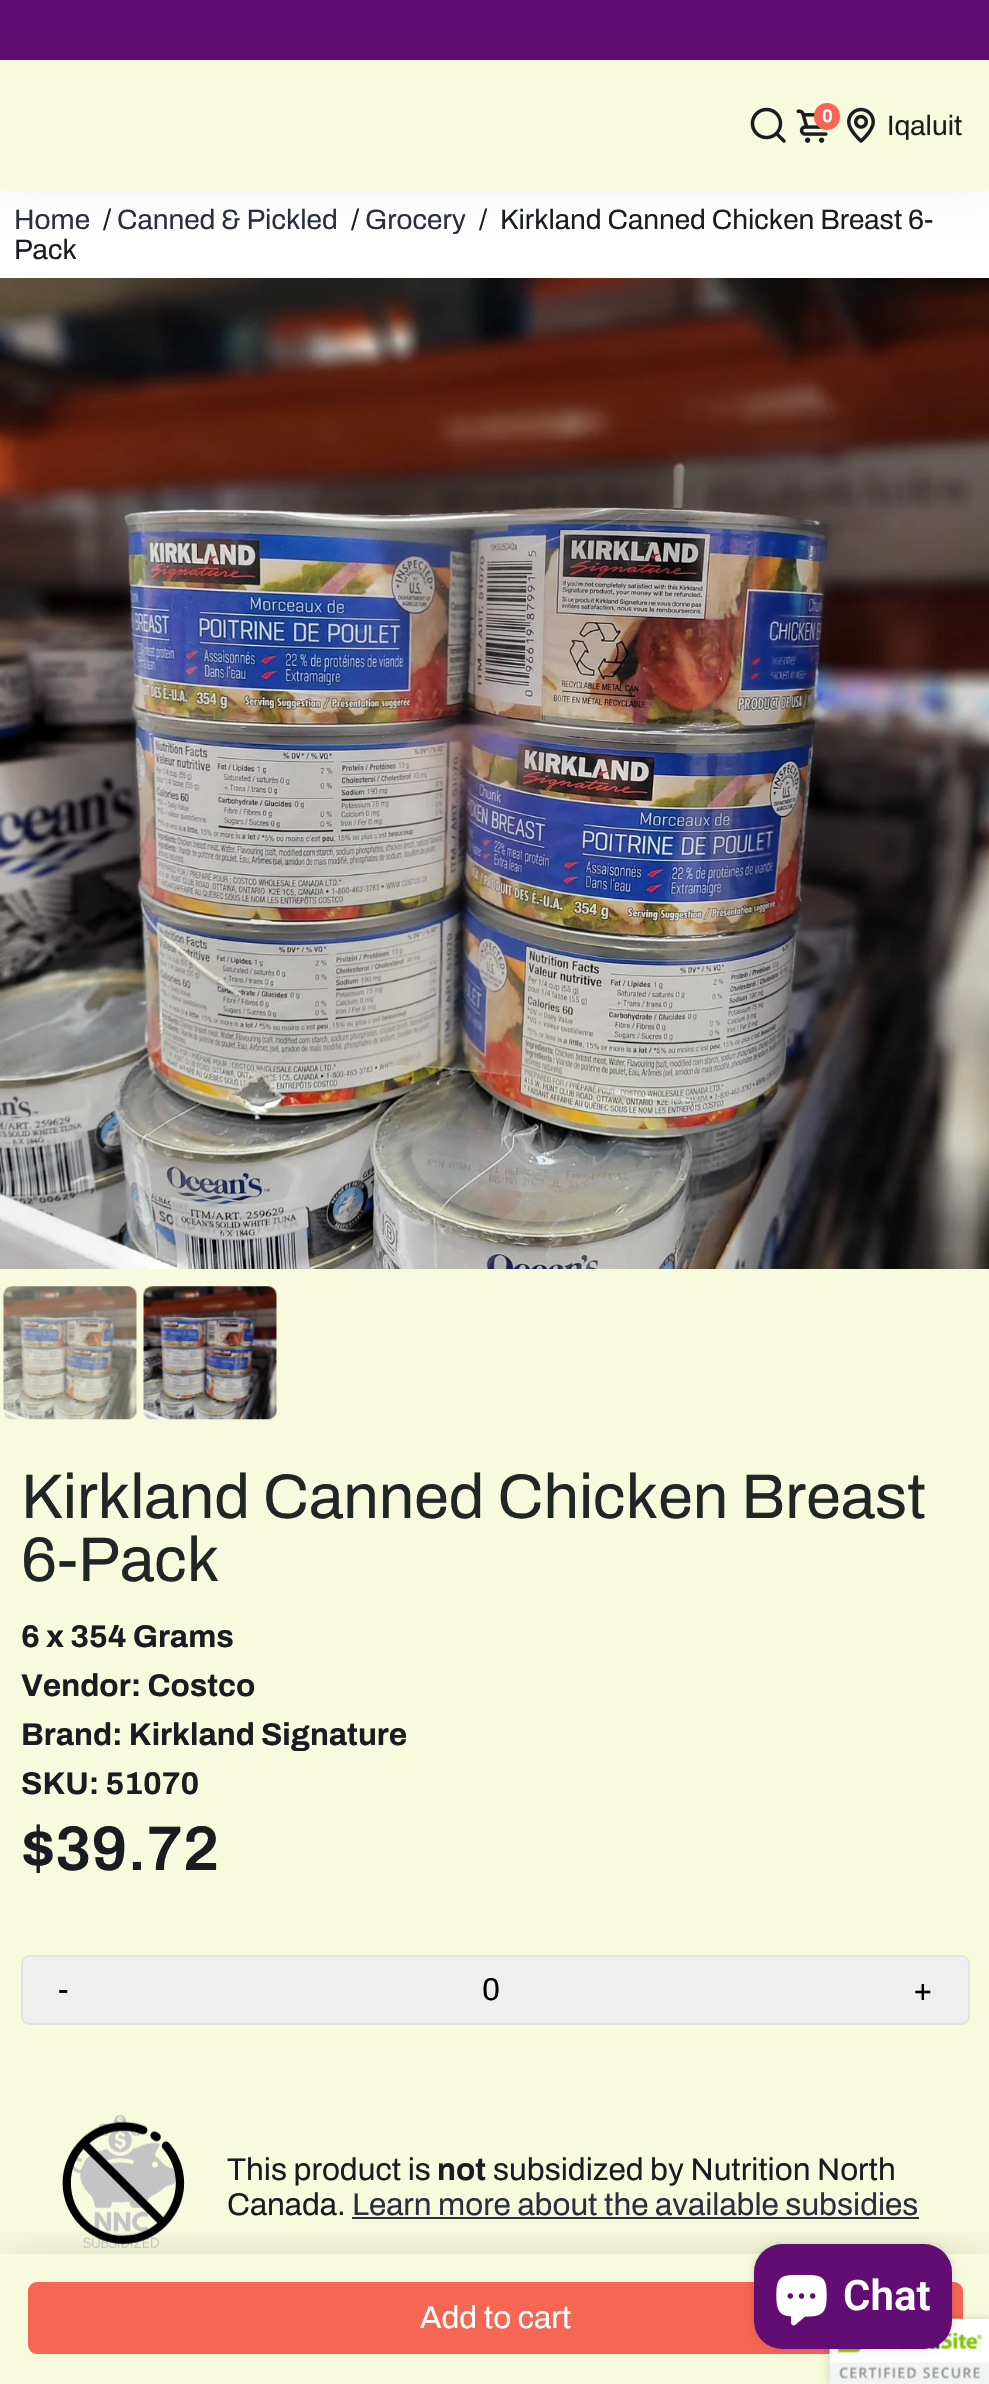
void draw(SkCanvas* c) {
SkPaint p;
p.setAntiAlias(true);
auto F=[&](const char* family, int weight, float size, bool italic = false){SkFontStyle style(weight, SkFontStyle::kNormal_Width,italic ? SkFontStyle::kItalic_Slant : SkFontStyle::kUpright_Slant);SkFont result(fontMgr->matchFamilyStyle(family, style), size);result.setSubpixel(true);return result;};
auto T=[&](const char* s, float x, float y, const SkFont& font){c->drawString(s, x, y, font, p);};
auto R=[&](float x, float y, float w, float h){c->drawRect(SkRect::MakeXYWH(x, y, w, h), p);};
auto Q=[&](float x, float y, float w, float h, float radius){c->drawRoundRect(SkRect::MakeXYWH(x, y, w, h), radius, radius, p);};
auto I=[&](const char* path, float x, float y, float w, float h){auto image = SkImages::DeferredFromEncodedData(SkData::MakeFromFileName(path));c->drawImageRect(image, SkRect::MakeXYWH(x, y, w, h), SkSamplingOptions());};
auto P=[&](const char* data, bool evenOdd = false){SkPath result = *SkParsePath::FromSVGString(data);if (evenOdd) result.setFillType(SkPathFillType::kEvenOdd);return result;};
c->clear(0xfff7fadc);
p.setColor(0xff610d73);
R(0,0,989,60);
p.setColor(0xffffffff);
R(0,191,989,87);
p.setColor(0x0f000000);
p.setMaskFilter(SkMaskFilter::MakeBlur(kNormal_SkBlurStyle, 17.5));
c->drawRect(SkRect::MakeXYWH(0,60,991,131),p);
p.setMaskFilter(nullptr);
p.setColor(0xfff7fadc);
R(0,60,989,131);
I("1.png",750,107,36,36);
I("2.png",796,109,32,34);
p.setColor(0xfff56654);
Q(814,103,26,27,13);
auto f1 = F("Archivo",700,18);
p.setColor(0xffffffff);
T("0",822,122,f1);
I("3.png",847,107,28,36);
auto f2 = F("Archivo",400,28);
p.setColor(0xff191d21);
T("Iqaluit",887,135,f2);
p.setColor(0xff2b2f3d);
T("Home",14,229,f2);
p.setColor(0xff191d21);
T("/",103,229,f2);
p.setColor(0xff2b2f3d);
T("Canned & Pickled",117,229,f2);
p.setColor(0xff191d21);
T("/",351,229,f2);
p.setColor(0xff2b2f3d);
T("Grocery",365,229,f2);
p.setColor(0xff191d21);
T("/",479,229,f2);
T("Kirkland Canned Chicken Breast 6-",500,229,f2);
T("Pack",14,259,f2);
I("4.png",0,278,989,991);
I("5.png",3,1286,134,134);
I("6.png",143,1286,134,134);
auto f3 = F("Archivo",400,63);
p.setColor(0xff202626);
T("Kirkland Canned Chicken Breast",21,1518,f3);
T("6-Pack",21,1581,f3);
auto f4 = F("Archivo",700,31.5);
p.setColor(0xff191d21);
T("6 x 354 Grams",21,1647,f4);
T("Vendor: Costco",21,1696,f4);
T("Brand: Kirkland Signature",21,1745,f4);
T("SKU: 51070",21,1794,f4);
auto f5 = F("Archivo",600,63);
T("$39.72",21,1870,f5);
p.setStroke(true);
p.setStrokeWidth(2);
p.setColor(0xffe2e2e2);
c->drawRoundRect(SkRect::MakeXYWH(22,1956,947,68),8,8,p);
p.setStroke(false);
p.setColor(0xffefefef);
c->drawPath(P("M30 1957h73v66h-73c-4 0-7-3-7-7v-52c0-4 3-7 7-7z"),p);
auto f6 = F("Archivo",400,31.5);
p.setColor(0xff000000);
T("-",58,2000,f6);
p.setColor(0xffefefef);
R(103,1957,776,66);
p.setColor(0xff000000);
T("0",482,2000,f6);
p.setColor(0xffefefef);
c->drawPath(P("M879 1957h82c4 0 7 3 7 7v52c0 4-3 7-7 7h-82z"),p);
p.setColor(0xff000000);
T("+",913,2000,f6);
I("7.png",62,2114,123,135);
p.setColor(0xff191d21);
T("This product is",227,2180,f6);
T("not",437,2180,f4);
T("subsidized by Nutrition North",493,2180,f6);
T("Canada.",227,2215,f6);
p.setColor(0xff2b2f3d);
T("Learn more about the available subsidies",352,2215,f6);
R(352,2217,567,2);
c->save();
c->clipRect(SkRect::MakeXYWH(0,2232,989,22));
p.setColor(0x1a000000);
p.setMaskFilter(SkMaskFilter::MakeBlur(kNormal_SkBlurStyle, 26));
c->drawRect(SkRect::MakeXYWH(0,2254,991,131),p);
p.setMaskFilter(nullptr);
c->restore();
p.setColor(0xfff56654);
Q(28,2282,935,72,9);
p.setColor(0xffffffff);
T("Add to cart",420,2328,f6);
p.setColor(0x33000000);
p.setMaskFilter(SkMaskFilter::MakeBlur(kNormal_SkBlurStyle, 4.5));
c->drawRoundRect(SkRect::MakeXYWH(830,2319,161,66),4,4,p);
p.setMaskFilter(nullptr);
p.setColor(0xffffffff);
R(987,2319,2,1);
I("9.png",829,2318,160,66);
p.setColor(0x26000000);
p.setMaskFilter(SkMaskFilter::MakeBlur(kNormal_SkBlurStyle, 4.5));
c->drawRoundRect(SkRect::MakeXYWH(754,2244,198,105),28,28,p);
p.setMaskFilter(nullptr);
p.setColor(0xff610d73);
Q(754,2244,198,105,28);
I("8.png",776,2275,51,51);
auto f7 = F("Roboto",600,42);
p.setColor(0xffffffff);
T("Chat",843,2310,f7);
}
